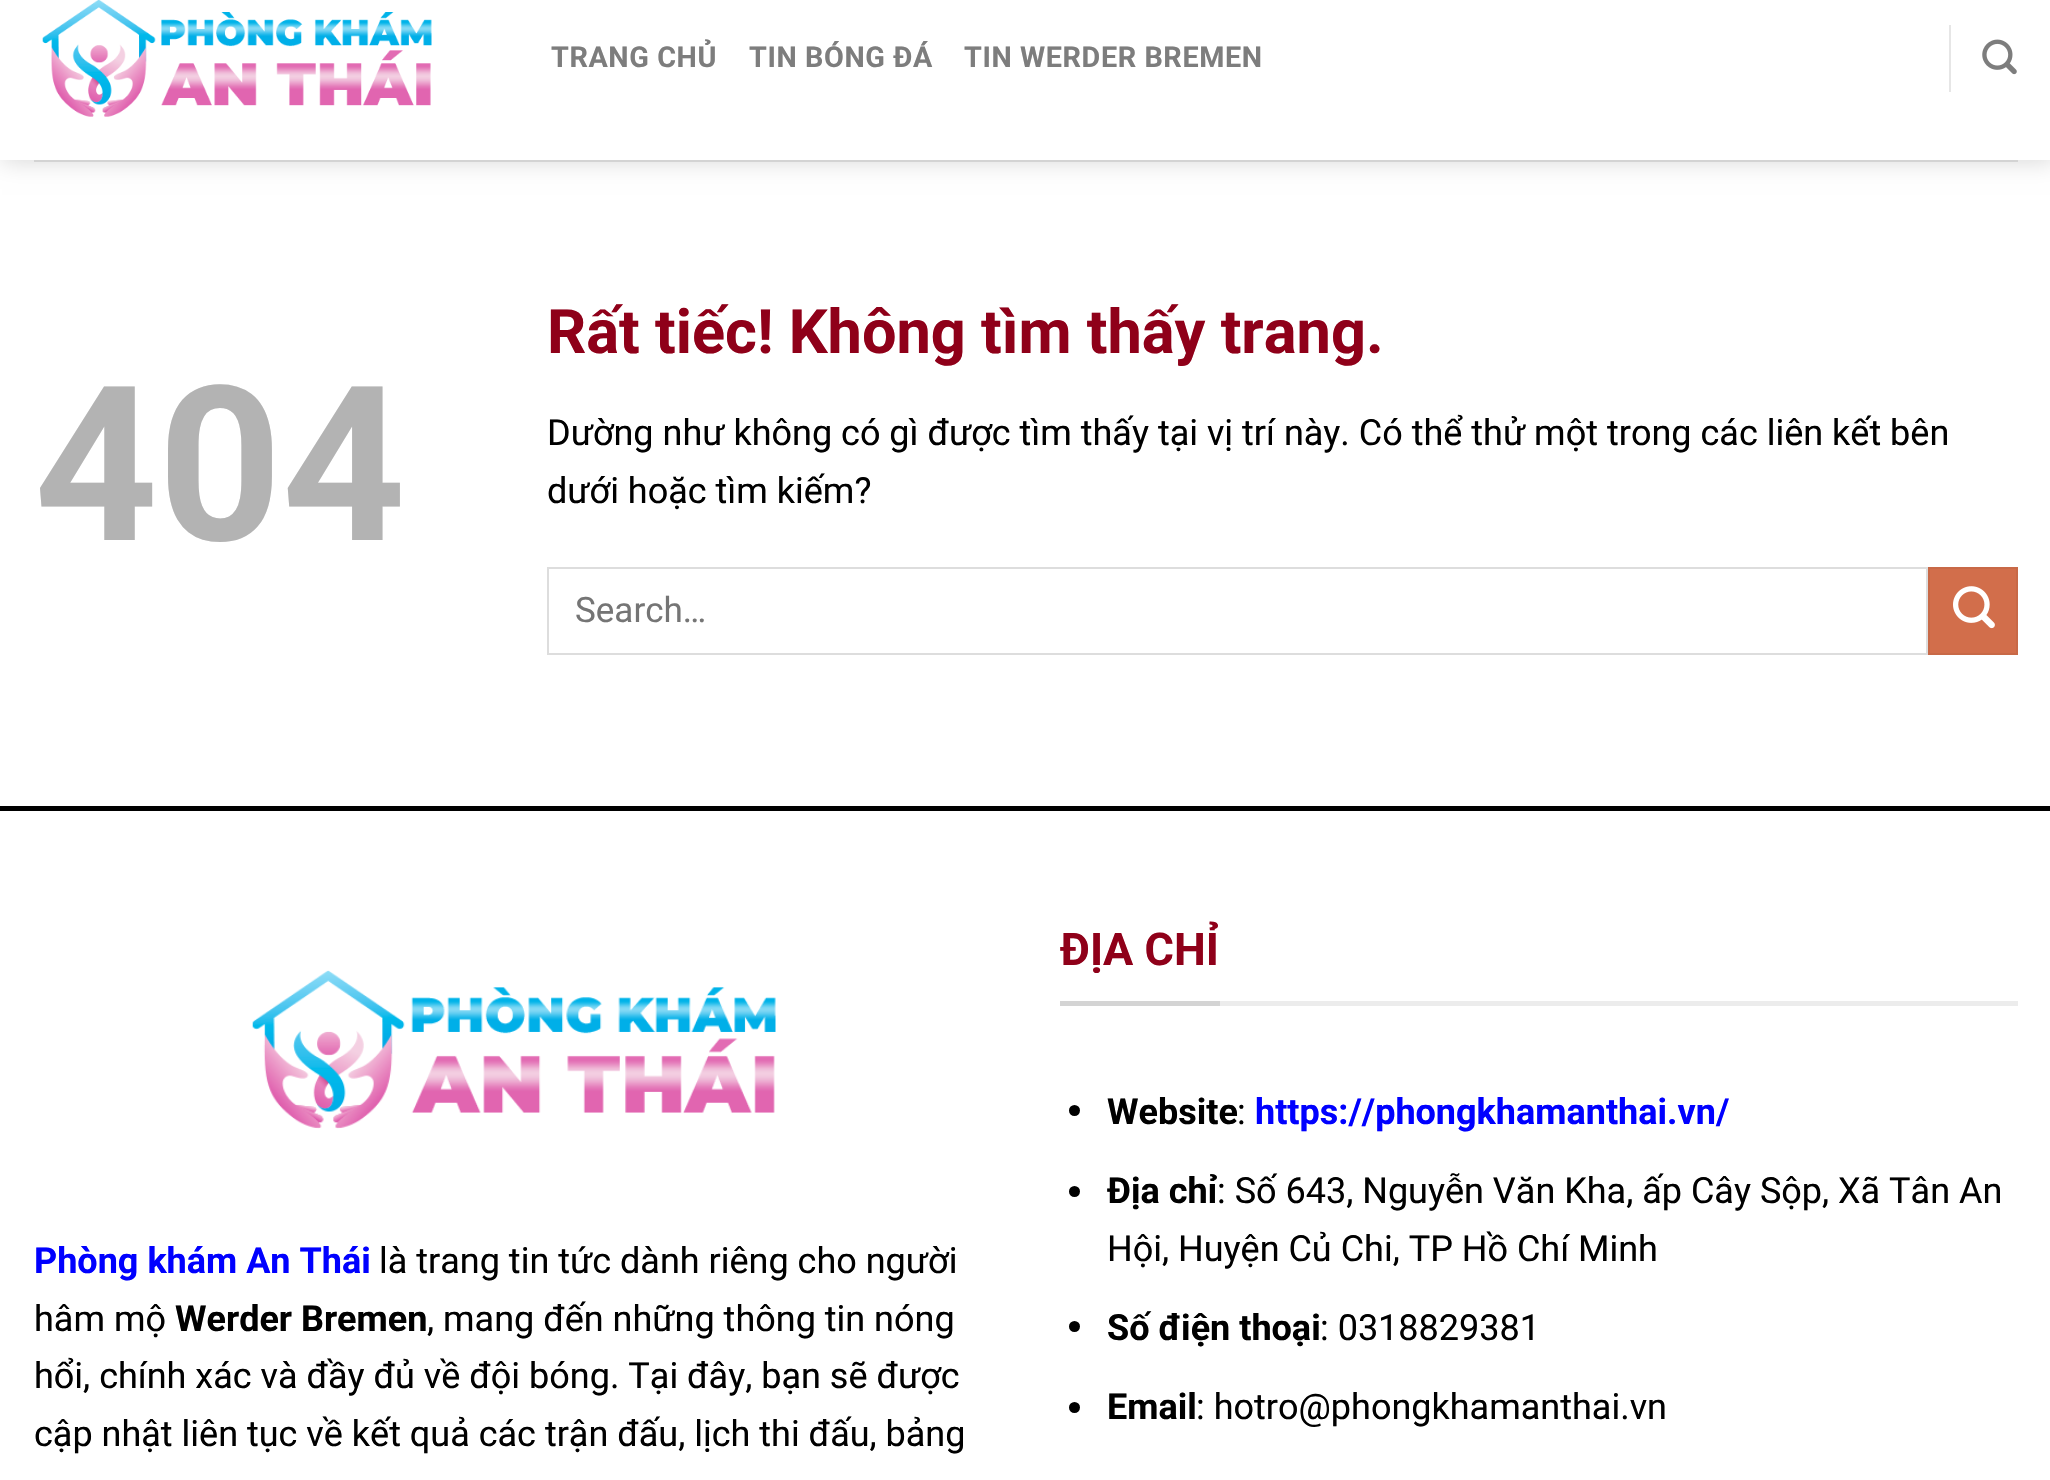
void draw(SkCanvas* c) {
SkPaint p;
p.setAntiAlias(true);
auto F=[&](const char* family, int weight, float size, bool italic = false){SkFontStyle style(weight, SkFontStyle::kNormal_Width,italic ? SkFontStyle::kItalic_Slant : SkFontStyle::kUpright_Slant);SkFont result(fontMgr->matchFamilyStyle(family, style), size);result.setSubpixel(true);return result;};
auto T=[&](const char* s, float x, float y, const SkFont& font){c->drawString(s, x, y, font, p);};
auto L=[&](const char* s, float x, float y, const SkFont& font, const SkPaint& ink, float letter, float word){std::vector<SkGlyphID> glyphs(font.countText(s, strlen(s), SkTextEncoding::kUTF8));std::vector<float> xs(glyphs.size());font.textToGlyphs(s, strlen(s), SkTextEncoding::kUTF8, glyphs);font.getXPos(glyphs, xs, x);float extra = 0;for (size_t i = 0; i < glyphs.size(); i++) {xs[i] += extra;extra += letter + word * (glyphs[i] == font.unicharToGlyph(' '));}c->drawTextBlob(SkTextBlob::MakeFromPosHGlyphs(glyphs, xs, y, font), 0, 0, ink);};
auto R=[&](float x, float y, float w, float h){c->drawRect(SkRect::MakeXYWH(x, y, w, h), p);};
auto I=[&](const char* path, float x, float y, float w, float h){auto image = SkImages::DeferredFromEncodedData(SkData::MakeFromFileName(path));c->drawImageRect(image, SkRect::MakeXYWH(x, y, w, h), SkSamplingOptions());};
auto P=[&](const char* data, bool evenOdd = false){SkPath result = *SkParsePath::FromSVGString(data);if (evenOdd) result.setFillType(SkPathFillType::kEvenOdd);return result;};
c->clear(0xffffffff);
c->save();
c->clipPath(P("M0 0h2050v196h-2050zm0-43h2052v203h-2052z",true),true);
p.setColor(0x26000000);
p.setMaskFilter(SkMaskFilter::MakeBlur(kNormal_SkBlurStyle, 11));
c->drawRect(SkRect::MakeXYWH(2,-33,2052,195),p);
p.setMaskFilter(nullptr);
c->restore();
I("1.png",42,0,390,117);
auto f1 = F("Roboto",700,28.75);
p.setColor(0xff7d7d7d);
L("TRANG CHỦ",551,67,f1,p,.6,0);
L("TIN BÓNG ĐÁ",749,67,f1,p,.6,0);
L("TIN WERDER BREMEN",964,67,f1,p,.6,0);
p.setColor(0xffe6e6e6);
R(1949,25,2,67);
I("2.png",1982,39,35,36);
p.setColor(0xffd3d3d3);
R(34,160,1984,2);
p.setColor(0xe6ffffff);
R(2,159,2048,1);
auto f2 = F("Roboto",700,216);
p.setColor(0xffb3b3b3);
T("404",34,540,f2);
auto f3 = F("Roboto",700,61.25);
p.setColor(0xff8f0019);
T("Rất tiếc! Không tìm thấy trang.",547,353,f3);
auto f4 = F("Roboto",400,36);
p.setColor(0xff000000);
T("Dường như không có gì được tìm thấy tại vị trí này. Có thể thử một trong các liên kết bên",547,445,f4);
T("dưới hoặc tìm kiếm?",547,503,f4);
p.setStroke(true);
p.setStrokeWidth(2);
p.setColor(0xffdddddd);
c->drawRect(SkRect::MakeXYWH(548,568,1379,86),p);
auto f5 = F("Roboto",400,35);
p.setStroke(false);
p.setColor(0xff757575);
T("Search…",575,622,f5);
p.setColor(0xffd26e4b);
c->drawRect(SkRect::MakeXYWH(1929,568,88,86),p);
p.setStroke(true);
p.setColor(0xffc86947);
c->drawRect(SkRect::MakeXYWH(1929,568,88,86),p);
I("3.png",1953,586,42,43);
p.setStroke(false);
p.setColor(0xff000000);
R(0,806,2050,5);
I("4.png",252,970,524,159);
auto f6 = F("Roboto",700,36);
p.setColor(0xff0000ff);
T("Phòng khám An Thái",34,1273,f6);
p.setColor(0xff000000);
T("là trang tin tức dành riêng cho người",379,1273,f4);
T("hâm mộ",34,1331,f4);
T("Werder Bremen",175,1331,f6);
T(", mang đến những thông tin nóng",427,1331,f4);
T("hổi, chính xác và đầy đủ về đội bóng. Tại đây, bạn sẽ được",34,1388,f4);
T("cập nhật liên tục về kết quả các trận đấu, lịch thi đấu, bảng",34,1446,f4);
p.setColor(0xffececec);
R(1220,1001,798,5);
p.setColor(0xffd4d4d4);
R(1060,1001,160,5);
auto f7 = F("Roboto",700,45);
p.setColor(0xff8f0019);
T("ĐỊA CHỈ",1060,965,f7);
p.setColor(0xff000000);
c->drawCircle(1074.5,1110.5,5.5,p);
T("Website",1107,1124,f6);
T(":",1237,1124,f4);
p.setColor(0xff0000ff);
T("https://phongkhamanthai.vn/",1255,1124,f6);
p.setColor(0xff000000);
c->drawCircle(1074.5,1191.5,5.5,p);
T("Địa chỉ",1107,1203,f6);
T(": Số 643, Nguyễn Văn Kha, ấp Cây Sộp, Xã Tân An",1217,1203,f4);
T("Hội, Huyện Củ Chi, TP Hồ Chí Minh",1107,1261,f4);
c->drawCircle(1074.5,1326.5,5.5,p);
T("Số điện thoại",1107,1340,f6);
T(": 0318829381",1320,1340,f4);
c->drawCircle(1074.5,1407.5,5.5,p);
T("Email",1107,1419,f6);
T(": hotro@phongkhamanthai.vn",1196,1419,f4);
}
